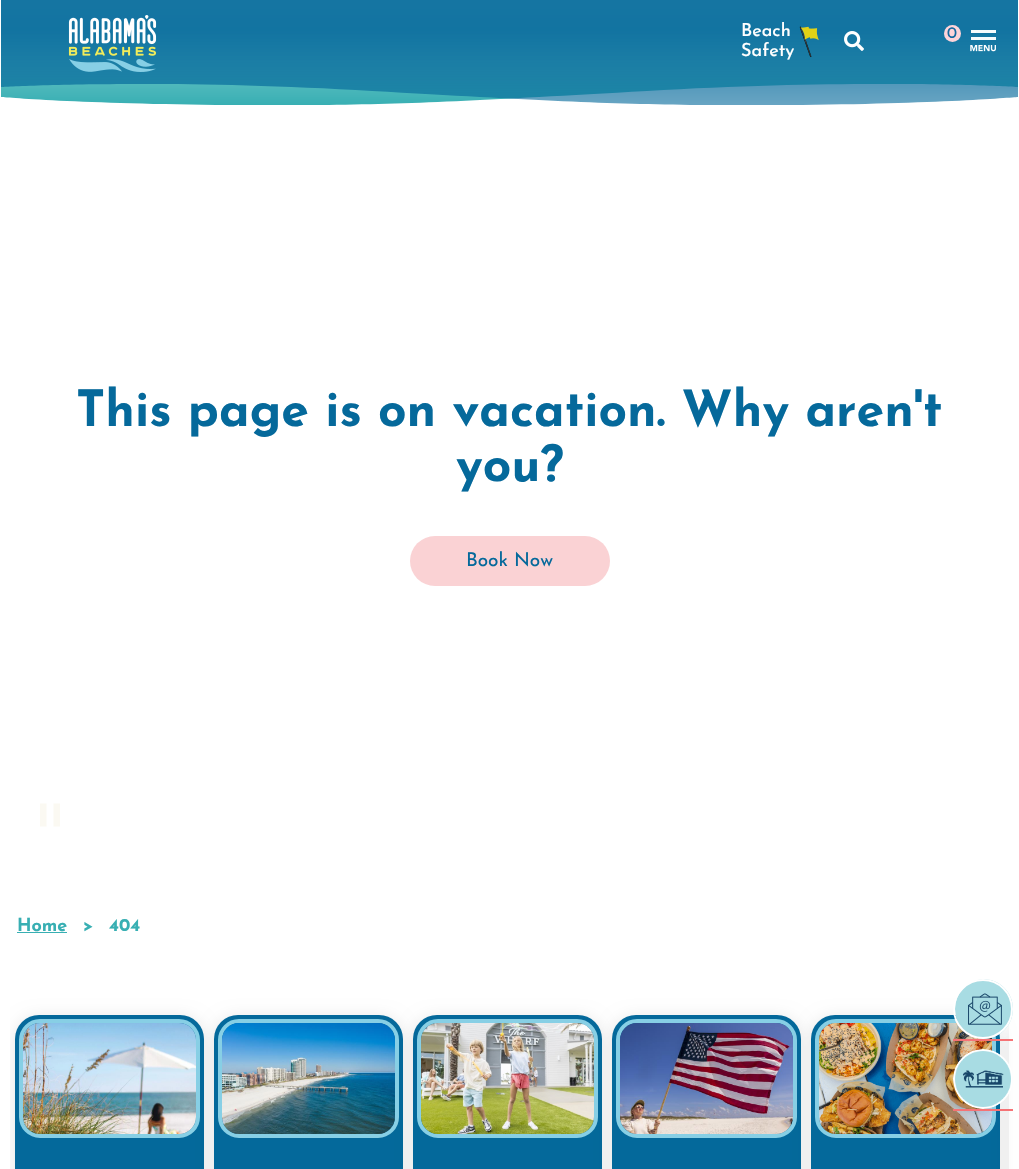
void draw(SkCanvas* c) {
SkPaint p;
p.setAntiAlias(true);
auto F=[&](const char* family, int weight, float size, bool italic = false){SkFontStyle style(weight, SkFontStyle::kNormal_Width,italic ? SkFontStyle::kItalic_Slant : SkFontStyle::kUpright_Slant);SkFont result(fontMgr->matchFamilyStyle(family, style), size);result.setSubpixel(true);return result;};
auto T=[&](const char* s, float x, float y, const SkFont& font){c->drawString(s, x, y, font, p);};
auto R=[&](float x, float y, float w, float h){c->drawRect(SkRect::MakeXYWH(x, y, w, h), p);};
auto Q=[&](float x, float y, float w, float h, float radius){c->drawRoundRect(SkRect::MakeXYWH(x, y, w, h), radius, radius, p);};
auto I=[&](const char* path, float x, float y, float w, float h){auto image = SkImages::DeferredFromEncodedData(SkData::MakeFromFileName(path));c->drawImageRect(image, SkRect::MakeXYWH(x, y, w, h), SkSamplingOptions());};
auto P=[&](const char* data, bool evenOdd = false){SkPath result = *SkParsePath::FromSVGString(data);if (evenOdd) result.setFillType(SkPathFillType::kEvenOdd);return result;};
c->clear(0xffffffff);
c->save();
c->clipRect(SkRect::MakeXYWH(0,0,1019,105));
{
const SkColor colors[] = {0xff38afb3,0xffb0dfe1};
const float stops[] = {0,1};
const SkPoint ends[] = {{510,105}, {510,-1.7}};
p.setShader(SkGradientShader::MakeLinear(ends, colors, stops, 2, SkTileMode::kClamp));
p.setAlpha(255);
}
c->drawPath(P("M1 97c0 0 80 7 229 8c149 1 203-2 417-14c213-13 371-4 371-4v-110h-1017z"),p);
{
const SkColor colors[] = {0x9904699b,0xe604699b};
const float stops[] = {0,1};
const SkPoint ends[] = {{510,105}, {510,31}};
p.setShader(SkGradientShader::MakeLinear(ends, colors, stops, 2, SkTileMode::kClamp));
p.setAlpha(255);
}
c->drawPath(P("M1018 97c0 0-80 7-229 8c-149 1-203-2-417-14c-213-13-371-4-371-4v-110h1017z"),p);
c->restore();
I("1.png",68,15,89,57);
auto f1 = F("Josefin Sans",500,18);
p.setShader(nullptr);
p.setColor(0xffffffff);
T("Beach",741,36,f1);
T("Safety",741,56,f1);
I("2.png",799,26,13,32);
I("3.png",800,26,19,15);
I("4.png",844,31,20,20);
p.setColor(0xffffd4d9);
c->drawCircle(952.5,33.5,8.5,p);
auto f2 = F("Josefin Sans",400,16);
p.setColor(0xff1469a0);
T("0",947,38,f2);
I("5.png",970,30,26,22);
auto f3 = F("Josefin Sans",700,50);
p.setColor(0xff05699b);
T("This page is on vacation. Why aren't",76,426,f3);
T("you?",456,481,f3);
p.setColor(0xfffad2d4);
Q(410,536,200,50,25);
auto f4 = F("Josefin Sans",400,19);
p.setColor(0xff05699b);
T("Book Now",466,566,f4);
p.setColor(0xfffbf9f2);
c->drawPath(P("M53.5 803.5h6.5v23h-6.5zm-13.5 23v-23h6.5v23z"),p);
auto f5 = F("Josefin Sans",700,18);
p.setColor(0xff38afb3);
T("Home",17,931,f5);
R(17,932,50,1);
T(">",83,931,f5);
T("404",109,931,f5);
c->save();
c->clipRect(SkRect::MakeXYWH(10,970,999,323));
p.setColor(0x1a000000);
p.setMaskFilter(SkMaskFilter::MakeBlur(kNormal_SkBlurStyle, 8));
c->drawRoundRect(SkRect::MakeXYWH(15,1017,189,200),24,24,p);
p.setMaskFilter(nullptr);
c->restore();
p.setColor(0xff04699b);
Q(15,1015,189,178,24);
p.setColor(0x1a000000);
p.setMaskFilter(SkMaskFilter::MakeBlur(kNormal_SkBlurStyle, 8));
c->drawRoundRect(SkRect::MakeXYWH(214,1017,189,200),24,24,p);
p.setMaskFilter(nullptr);
p.setStroke(true);
p.setStrokeWidth(4);
p.setColor(0xff87cfe5);
c->drawRoundRect(SkRect::MakeXYWH(21,1021,177,115),19,19,p);
I("6.png",23,1023,173,111);
p.setStroke(false);
p.setColor(0xff04699b);
Q(214,1015,189,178,24);
p.setColor(0x1a000000);
p.setMaskFilter(SkMaskFilter::MakeBlur(kNormal_SkBlurStyle, 8));
c->drawRoundRect(SkRect::MakeXYWH(413,1017,189,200),24,24,p);
p.setMaskFilter(nullptr);
p.setStroke(true);
p.setColor(0xff87cfe5);
c->drawRoundRect(SkRect::MakeXYWH(220,1021,177,115),19,19,p);
I("7.png",222,1023,173,111);
p.setStroke(false);
p.setColor(0xff04699b);
Q(413,1015,189,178,24);
p.setColor(0x1a000000);
p.setMaskFilter(SkMaskFilter::MakeBlur(kNormal_SkBlurStyle, 8));
c->drawRoundRect(SkRect::MakeXYWH(612,1017,189,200),24,24,p);
p.setMaskFilter(nullptr);
p.setStroke(true);
p.setColor(0xff87cfe5);
c->drawRoundRect(SkRect::MakeXYWH(419,1021,177,115),19,19,p);
I("8.png",421,1023,173,111);
p.setStroke(false);
p.setColor(0xff04699b);
Q(612,1015,189,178,24);
p.setColor(0x1a000000);
p.setMaskFilter(SkMaskFilter::MakeBlur(kNormal_SkBlurStyle, 8));
c->drawRoundRect(SkRect::MakeXYWH(811,1017,189,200),24,24,p);
p.setMaskFilter(nullptr);
p.setStroke(true);
p.setColor(0xff87cfe5);
c->drawRoundRect(SkRect::MakeXYWH(618,1021,177,115),19,19,p);
I("9.png",620,1023,173,111);
p.setStroke(false);
p.setColor(0xff04699b);
Q(811,1015,189,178,24);
c->save();
c->clipRect(SkRect::MakeXYWH(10,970,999,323));
p.setColor(0x1a000000);
p.setMaskFilter(SkMaskFilter::MakeBlur(kNormal_SkBlurStyle, 8));
c->drawRoundRect(SkRect::MakeXYWH(1010,1017,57,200),24,24,p);
p.setMaskFilter(nullptr);
c->restore();
p.setStroke(true);
p.setColor(0xff87cfe5);
c->drawRoundRect(SkRect::MakeXYWH(817,1021,177,115),19,19,p);
I("10.png",819,1023,173,111);
p.setStroke(false);
p.setColor(0xfff57376);
R(953,1039,60,2);
I("11.png",955,979,58,60);
p.setStroke(true);
p.setStrokeWidth(2);
p.setColor(0xffffffff);
c->drawCircle(983,1009,29,p);
p.setStroke(false);
p.setColor(0xfff57376);
R(953,1109,60,2);
I("12.png",953,1049,59,60);
}
